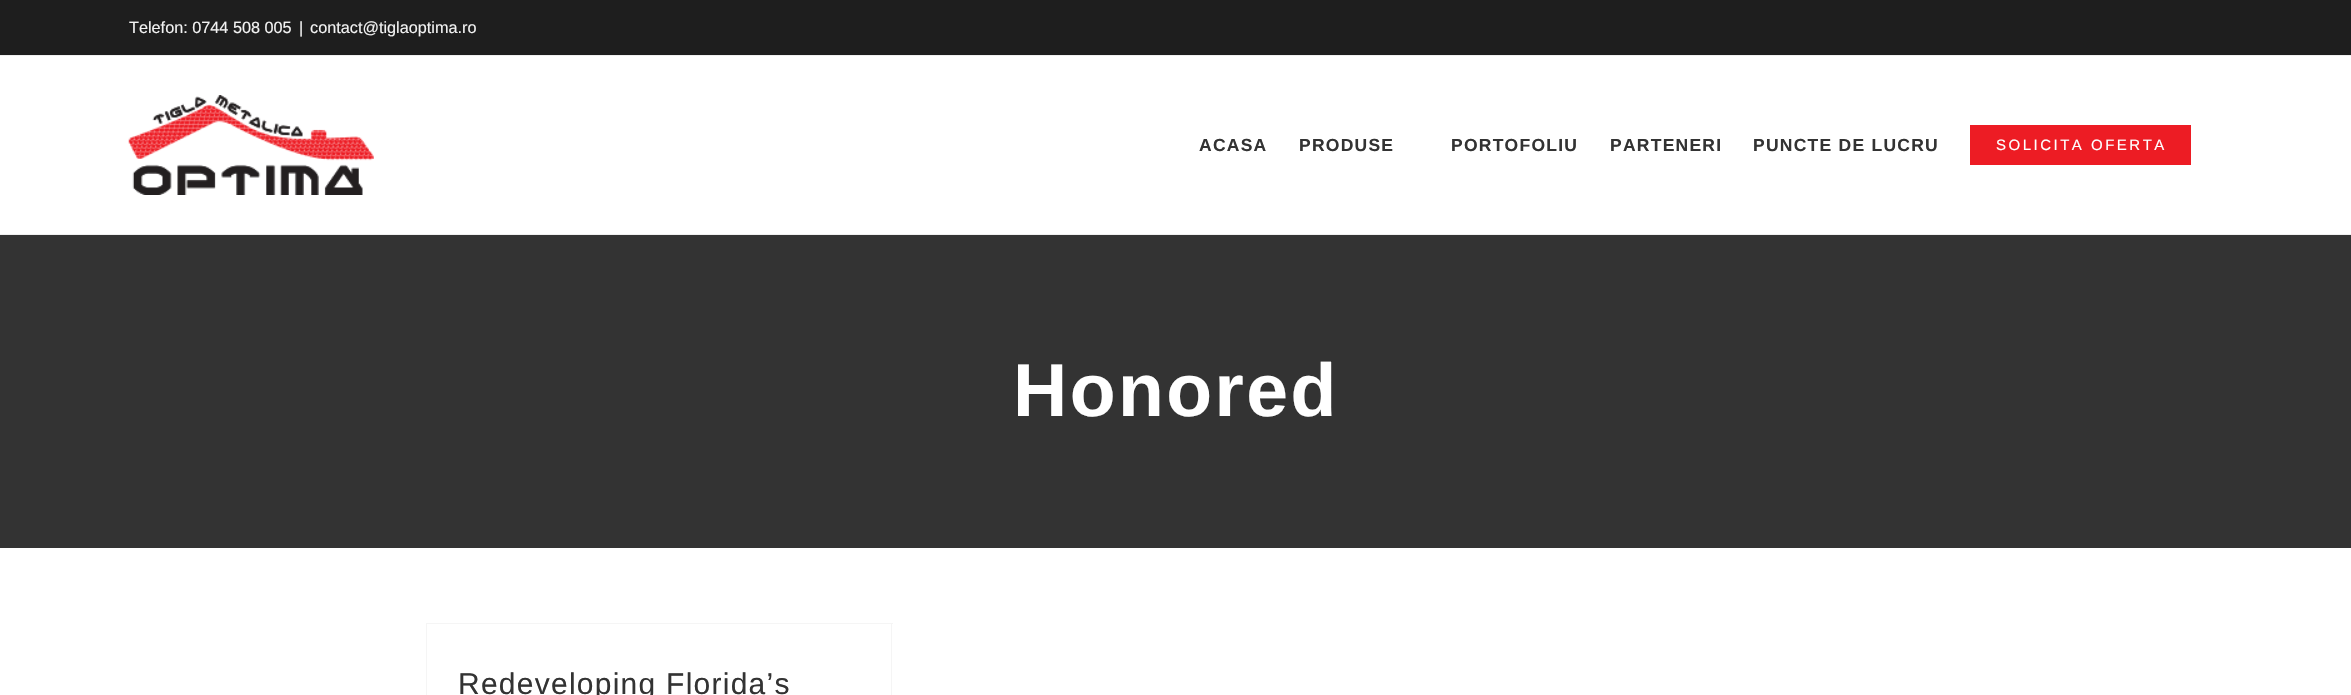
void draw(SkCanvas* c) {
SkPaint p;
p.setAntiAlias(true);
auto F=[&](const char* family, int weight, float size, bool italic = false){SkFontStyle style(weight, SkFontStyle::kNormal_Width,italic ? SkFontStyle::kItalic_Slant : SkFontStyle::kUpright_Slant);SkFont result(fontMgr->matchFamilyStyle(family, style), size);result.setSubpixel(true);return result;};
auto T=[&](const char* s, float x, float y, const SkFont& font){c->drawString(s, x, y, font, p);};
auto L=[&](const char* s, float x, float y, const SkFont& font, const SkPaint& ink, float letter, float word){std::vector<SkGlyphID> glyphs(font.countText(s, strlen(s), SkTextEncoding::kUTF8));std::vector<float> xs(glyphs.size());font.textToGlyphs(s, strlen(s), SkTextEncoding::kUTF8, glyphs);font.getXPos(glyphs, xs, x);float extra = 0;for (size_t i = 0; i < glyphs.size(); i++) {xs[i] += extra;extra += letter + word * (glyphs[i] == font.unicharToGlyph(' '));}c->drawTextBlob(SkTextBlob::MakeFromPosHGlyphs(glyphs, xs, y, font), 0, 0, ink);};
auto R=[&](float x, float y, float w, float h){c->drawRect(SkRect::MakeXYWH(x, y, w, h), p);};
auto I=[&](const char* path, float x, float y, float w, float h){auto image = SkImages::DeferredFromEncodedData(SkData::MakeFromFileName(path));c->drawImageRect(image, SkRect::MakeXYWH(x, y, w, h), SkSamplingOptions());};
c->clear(0xffffffff);
p.setColor(0xff1e1e1e);
R(0,0,2351,55);
p.setColor(0xffefefef);
R(0,55,2351,1);
auto f1 = F("Liberation Sans",400,16.25);
p.setColor(0xfff2f2f2);
T("Telefon: 0744 508 005",129,33,f1);
T("|",299,33,f1);
T("contact@tiglaoptima.ro",310,33,f1);
p.setColor(0xffefefef);
R(0,234,2351,1);
I("1.png",128,95,246,100);
auto f2 = F("Liberation Sans",700,17.5);
p.setColor(0xff333333);
L("ACASA",1199,151,f2,p,1.25,0);
L("PRODUSE",1299,151,f2,p,1.25,0);
L("PORTOFOLIU",1451,151,f2,p,1.25,0);
L("PARTENERI",1610,151,f2,p,1.25,0);
L("PUNCTE DE LUCRU",1753,151,f2,p,1.25,0);
p.setColor(0xffed1c24);
R(1970,125,221,40);
auto f3 = F("Liberation Sans",400,15);
p.setColor(0xffffffff);
L("SOLICITA OFERTA",1996,150,f3,p,2.5,0);
p.setColor(0xff333333);
R(0,235,2351,313);
auto f4 = F("Liberation Sans",700,75);
p.setColor(0xffffffff);
L("Honored",1013,416,f4,p,2.5,0);
p.setColor(0xfff5f5f5);
R(426,623,467,1);
R(891,623,1,72);
R(426,623,1,72);
auto f5 = F("Liberation Sans",400,30);
p.setColor(0xff333333);
L("Redeveloping Florida’s",458,694,f5,p,1.25,0);
}
